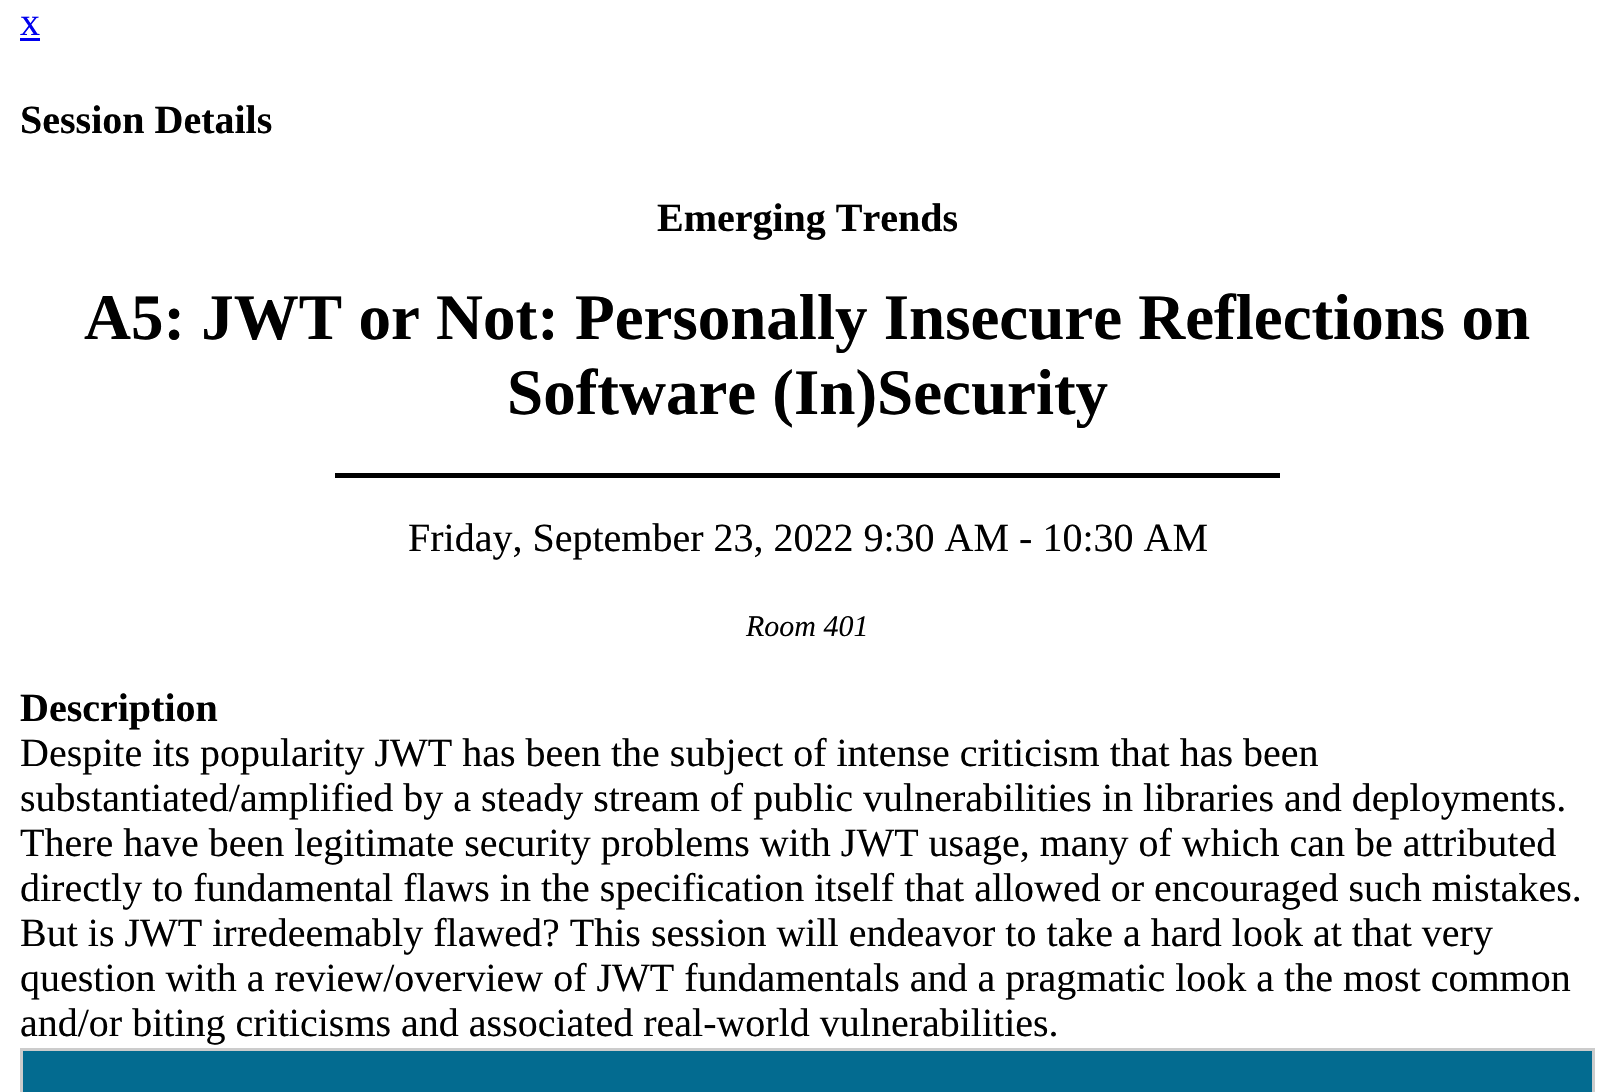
void draw(SkCanvas* c) {
SkPaint p;
p.setAntiAlias(true);
auto F=[&](const char* family, int weight, float size, bool italic = false){SkFontStyle style(weight, SkFontStyle::kNormal_Width,italic ? SkFontStyle::kItalic_Slant : SkFontStyle::kUpright_Slant);SkFont result(fontMgr->matchFamilyStyle(family, style), size);result.setSubpixel(true);return result;};
auto T=[&](const char* s, float x, float y, const SkFont& font){c->drawString(s, x, y, font, p);};
auto R=[&](float x, float y, float w, float h){c->drawRect(SkRect::MakeXYWH(x, y, w, h), p);};
c->clear(0xffffffff);
auto f1 = F("Liberation Serif",400,40);
p.setColor(0xff0000ee);
T("x",20,35,f1);
R(20,38,20,3);
auto f2 = F("Liberation Serif",700,40);
p.setColor(0xff000000);
T("Session Details",20,133,f2);
T("Emerging Trends",657,231,f2);
auto f3 = F("Liberation Serif",700,65);
T("A5: JWT or Not: Personally Insecure Reflections on",84,339,f3);
T("Software (In)Security",507,414,f3);
R(335,473,945,5);
T("Friday, September 23, 2022 9:30 AM - 10:30 AM",408,551,f1);
auto f4 = F("Liberation Serif",400,30,true);
T("Room 401",746,636,f4);
T("Description",20,721,f2);
T("Despite its popularity JWT has been the subject of intense criticism that has been",20,766,f1);
T("substantiated/amplified by a steady stream of public vulnerabilities in libraries and deployments.",20,811,f1);
T("There have been legitimate security problems with JWT usage, many of which can be attributed",20,856,f1);
T("directly to fundamental flaws in the specification itself that allowed or encouraged such mistakes.",20,901,f1);
T("But is JWT irredeemably flawed? This session will endeavor to take a hard look at that very",20,946,f1);
T("question with a review/overview of JWT fundamentals and a pragmatic look a the most common",20,991,f1);
T("and/or biting criticisms and associated real-world vulnerabilities.",20,1036,f1);
p.setColor(0xff036b90);
c->drawRect(SkRect::MakeXYWH(21.5,1049.5,1572,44),p);
p.setStroke(true);
p.setStrokeWidth(3);
p.setColor(0xffcccccc);
c->drawRect(SkRect::MakeXYWH(21.5,1049.5,1572,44),p);
}
